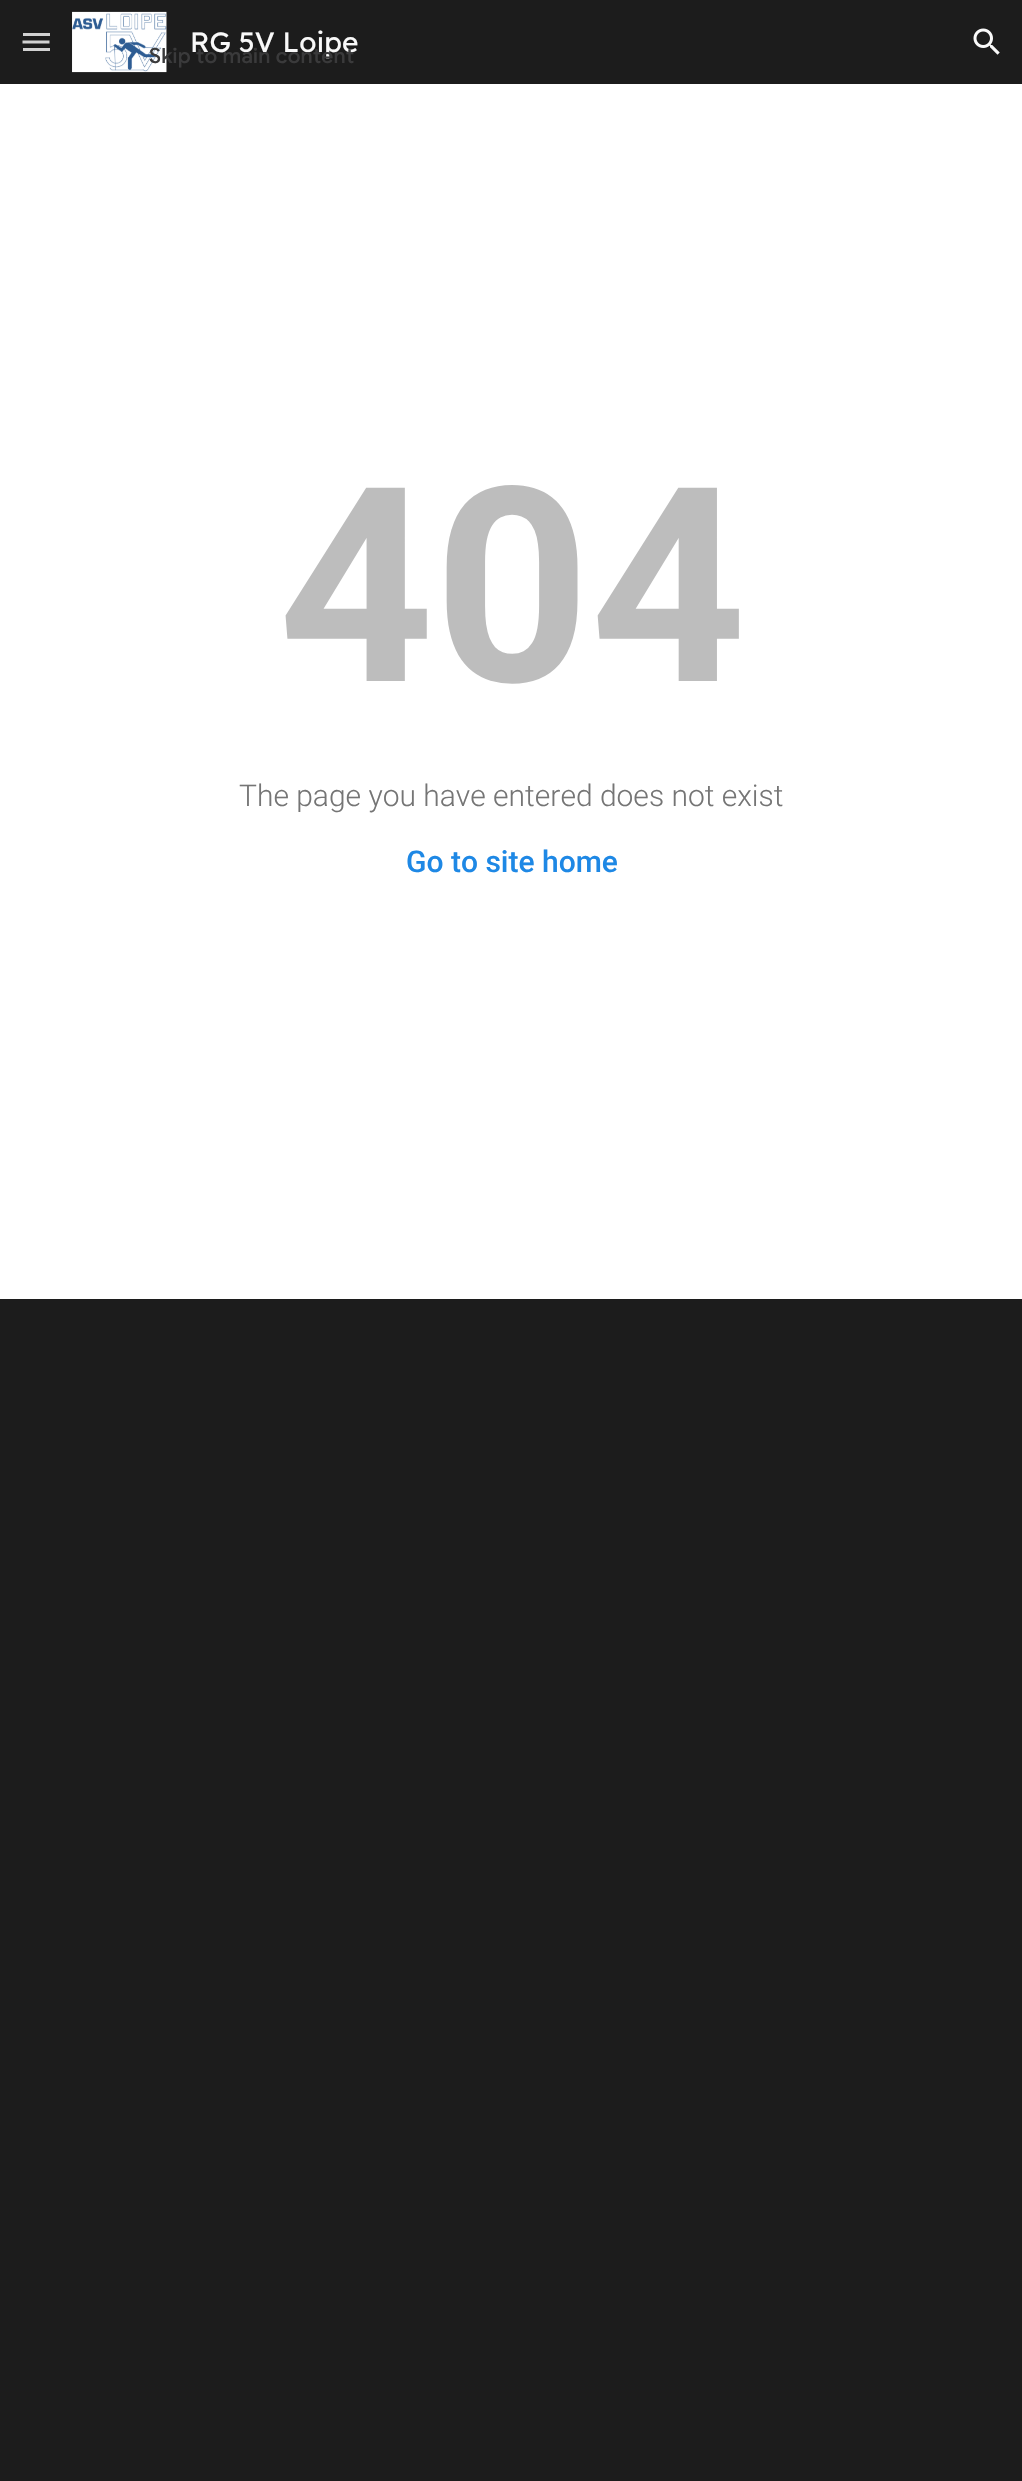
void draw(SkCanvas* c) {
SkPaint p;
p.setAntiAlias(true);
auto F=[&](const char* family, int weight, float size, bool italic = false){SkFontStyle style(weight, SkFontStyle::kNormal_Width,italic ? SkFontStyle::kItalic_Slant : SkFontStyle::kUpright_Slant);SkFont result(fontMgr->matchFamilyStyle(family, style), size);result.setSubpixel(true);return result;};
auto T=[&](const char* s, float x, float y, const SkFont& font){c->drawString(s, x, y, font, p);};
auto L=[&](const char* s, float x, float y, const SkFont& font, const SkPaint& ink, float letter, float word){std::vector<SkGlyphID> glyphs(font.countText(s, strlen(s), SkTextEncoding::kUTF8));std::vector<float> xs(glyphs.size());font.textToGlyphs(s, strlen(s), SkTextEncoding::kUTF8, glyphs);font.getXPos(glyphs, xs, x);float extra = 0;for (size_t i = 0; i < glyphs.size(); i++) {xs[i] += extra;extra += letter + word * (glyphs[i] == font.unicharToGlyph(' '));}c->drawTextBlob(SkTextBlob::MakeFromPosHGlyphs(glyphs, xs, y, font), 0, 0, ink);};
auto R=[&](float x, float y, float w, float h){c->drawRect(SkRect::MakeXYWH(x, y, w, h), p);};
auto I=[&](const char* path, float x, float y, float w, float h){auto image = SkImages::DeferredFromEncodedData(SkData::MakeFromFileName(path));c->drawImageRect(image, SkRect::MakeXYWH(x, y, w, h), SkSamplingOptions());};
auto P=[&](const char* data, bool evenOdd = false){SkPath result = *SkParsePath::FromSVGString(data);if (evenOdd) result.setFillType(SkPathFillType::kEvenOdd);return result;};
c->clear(0xff1c1c1c);
p.setColor(0xffd1d1d1);
R(23,33,27,3);
p.setStroke(true);
p.setStrokeWidth(3);
c->drawPath(P("M22.5 42h27"),p);
p.setStroke(false);
R(23,48,27,3);
I("1.png",72,11,95,62);
auto f1 = F("Lexend",400,28);
p.setColor(0xfff9f9f9);
T("RG 5V Loipe",190,52,f1);
I("2.png",973,28,27,27);
p.setColor(0xffffffff);
R(0,84,1022,1215);
auto f2 = F("Roboto",700,272);
p.setColor(0xffbdbdbd);
T("404",278,681,f2);
auto f3 = F("Roboto",300,30);
p.setColor(0xff757575);
T("The page you have entered does not exist",239,806,f3);
auto f4 = F("Roboto",500,30);
p.setColor(0xff1e88e5);
T("Go to site home",406,872,f4);
auto f5 = F("Google Sans",500,21);
p.setColor(0xff3a3a3b);
L("Skip to main content",149,63,f5,p,.25,0);
}
